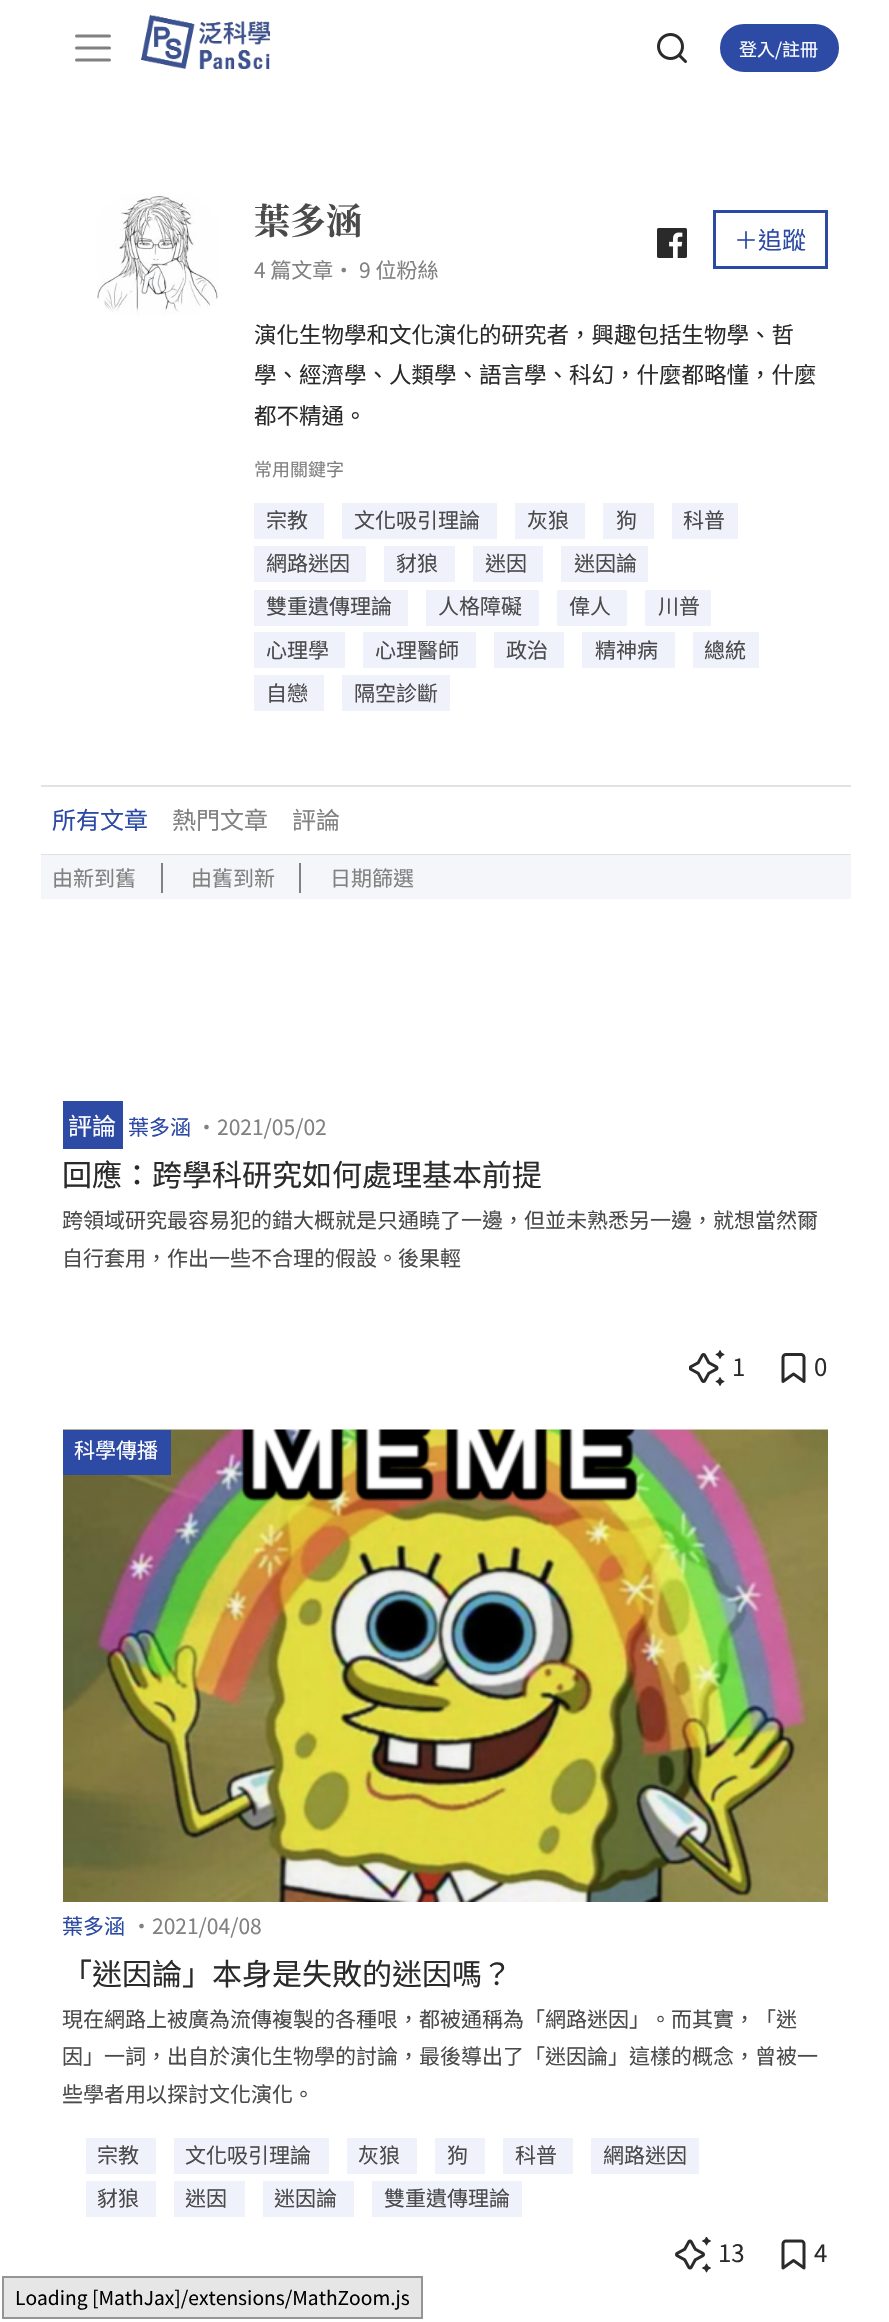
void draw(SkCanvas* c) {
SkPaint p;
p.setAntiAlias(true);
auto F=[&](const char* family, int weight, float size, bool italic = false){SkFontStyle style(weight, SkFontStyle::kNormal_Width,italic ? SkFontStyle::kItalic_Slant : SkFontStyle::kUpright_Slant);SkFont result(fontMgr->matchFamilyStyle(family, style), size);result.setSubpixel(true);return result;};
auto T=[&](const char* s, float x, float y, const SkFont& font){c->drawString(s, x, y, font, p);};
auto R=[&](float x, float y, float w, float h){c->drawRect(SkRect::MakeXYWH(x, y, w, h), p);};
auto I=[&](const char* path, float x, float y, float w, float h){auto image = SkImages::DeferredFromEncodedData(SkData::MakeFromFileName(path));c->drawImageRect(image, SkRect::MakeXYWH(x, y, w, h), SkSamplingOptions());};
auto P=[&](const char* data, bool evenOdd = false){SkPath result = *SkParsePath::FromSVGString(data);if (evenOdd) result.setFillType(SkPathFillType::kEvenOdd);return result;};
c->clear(0xffffffff);
p.setStroke(true);
p.setStrokeWidth(3);
p.setStrokeCap(SkPaint::kRound_Cap);
p.setColor(0xff808080);
c->drawPath(P("M76.5 36h33m-33 12h33m-33 12h33"),p);
I("1.png",140,14,130,55);
I("2.png",657,33,30,30);
p.setStroke(false);
p.setColor(0xff2d4aa4);
c->drawRoundRect(SkRect::MakeXYWH(721,25,117,46),23,23,p);
p.setStroke(true);
p.setStrokeWidth(2);
p.setStrokeCap(SkPaint::kButt_Cap);
c->drawRoundRect(SkRect::MakeXYWH(721,25,117,46),23,23,p);
auto f1 = F("Noto Sans TC",100,18);
p.setStroke(false);
p.setColor(0xffffffff);
T("登入/註冊",739,56,f1);
I("3.png",97,193,121,123);
auto f2 = F("Noto Serif TC",700,36);
p.setColor(0xff4a4a4a);
T("葉多涵",254,234,f2);
I("4.png",657,228,30,30);
p.setStroke(true);
p.setStrokeWidth(3);
p.setColor(0xff2c4aa5);
c->drawRect(SkRect::MakeXYWH(714.5,211.5,112,56),p);
auto f3 = F("Noto Sans TC",100,24);
p.setStroke(false);
T("＋追蹤",734,249,f3);
auto f4 = F("Noto Sans TC",100,21);
p.setColor(0xff818181);
T("4 篇文章・ 9 位粉絲",254,278,f4);
auto f5 = F("Noto Sans TC",100,22.5);
p.setColor(0xff2a2a2a);
T("演化生物學和文化演化的研究者，興趣包括生物學、哲",254,343,f5);
T("學、經濟學、人類學、語言學、科幻，什麼都略懂，什麼",254,383,f5);
T("都不精通。",254,424,f5);
p.setColor(0xff818181);
T("常用關鍵字",254,476,f1);
p.setColor(0xffeff1fb);
R(254,503,70,36);
p.setColor(0xff4a4a4a);
T("宗教",266,528,f4);
p.setColor(0xffeff1fb);
R(342,503,155,36);
p.setColor(0xff4a4a4a);
T("文化吸引理論",354,528,f4);
p.setColor(0xffeff1fb);
R(515,503,70,36);
p.setColor(0xff4a4a4a);
T("灰狼",527,528,f4);
p.setColor(0xffeff1fb);
R(603,503,51,36);
p.setColor(0xff4a4a4a);
T("狗",616,528,f4);
p.setColor(0xffeff1fb);
R(672,503,66,36);
p.setColor(0xff4a4a4a);
T("科普",683,528,f4);
p.setColor(0xffeff1fb);
R(254,546,112,36);
p.setColor(0xff4a4a4a);
T("網路迷因",266,571,f4);
p.setColor(0xffeff1fb);
R(384,546,71,36);
p.setColor(0xff4a4a4a);
T("豺狼",396,571,f4);
p.setColor(0xffeff1fb);
R(473,546,70,36);
p.setColor(0xff4a4a4a);
T("迷因",485,571,f4);
p.setColor(0xffeff1fb);
R(561,546,87,36);
p.setColor(0xff4a4a4a);
T("迷因論",574,571,f4);
p.setColor(0xffeff1fb);
R(254,590,154,36);
p.setColor(0xff4a4a4a);
T("雙重遺傳理論",266,614,f4);
p.setColor(0xffeff1fb);
R(426,590,113,36);
p.setColor(0xff4a4a4a);
T("人格障礙",438,614,f4);
p.setColor(0xffeff1fb);
R(557,590,70,36);
p.setColor(0xff4a4a4a);
T("偉人",569,614,f4);
p.setColor(0xffeff1fb);
R(645,590,66,36);
p.setColor(0xff4a4a4a);
T("川普",658,614,f4);
p.setColor(0xffeff1fb);
R(254,632,91,36);
p.setColor(0xff4a4a4a);
T("心理學",266,658,f4);
p.setColor(0xffeff1fb);
R(363,632,113,36);
p.setColor(0xff4a4a4a);
T("心理醫師",375,658,f4);
p.setColor(0xffeff1fb);
R(494,632,70,36);
p.setColor(0xff4a4a4a);
T("政治",506,658,f4);
p.setColor(0xffeff1fb);
R(582,632,93,36);
p.setColor(0xff4a4a4a);
T("精神病",595,658,f4);
p.setColor(0xffeff1fb);
R(693,632,66,36);
p.setColor(0xff4a4a4a);
T("總統",704,658,f4);
p.setColor(0xffeff1fb);
R(254,675,70,36);
p.setColor(0xff4a4a4a);
T("自戀",266,701,f4);
p.setColor(0xffeff1fb);
R(342,675,108,36);
p.setColor(0xff4a4a4a);
T("隔空診斷",354,701,f4);
p.setColor(0xffe2e2e2);
R(41,785,810,2);
R(41,854,810,1);
p.setColor(0xff2c4aa5);
T("所有文章",52,829,f3);
p.setColor(0xff818181);
T("熱門文章",172,829,f3);
T("評論",292,829,f3);
p.setColor(0xfff4f6f9);
R(41,855,810,44);
p.setColor(0xff818181);
T("由新到舊",52,886,f4);
R(161,863,2,30);
T("由舊到新",191,886,f4);
R(299,863,2,30);
T("日期篩選",330,886,f4);
p.setColor(0xff2d4aa4);
R(63,1101,60,48);
p.setColor(0xffffffff);
T("評論",68,1135,f3);
p.setColor(0xff2c4aa5);
T("葉多涵",128,1135,f4);
p.setColor(0xff818181);
T("・2021/05/02",196,1135,f4);
auto f6 = F("Noto Sans TC",100,30);
p.setColor(0xff2a2a2a);
T("回應：跨學科研究如何處理基本前提",62,1186,f6);
auto f7 = F("Noto Sans CJK TC",400,21);
p.setColor(0xff4a4a4a);
T("跨領域研究最容易犯的錯大概就是只通䁱了一邊，但並未熟悉另一邊，就想當然爾",62,1228,f7);
T("自行套用，作出一些不合理的假設。後果輕",62,1266,f7);
I("5.png",689,1350,36,36);
p.setColor(0xff2a2a2a);
T("1",732,1376,f3);
I("6.png",781,1353,25,30);
T("0",814,1376,f3);
I("7.png",63,1429,765,473);
p.setColor(0xff2d4aa4);
R(63,1430,108,45);
p.setColor(0xffffffff);
T("科學傳播",74,1458,f4);
p.setColor(0xff2c4aa5);
T("葉多涵",62,1934,f4);
p.setColor(0xff818181);
T("・2021/04/08",131,1934,f4);
p.setColor(0xff2a2a2a);
T("「迷因論」本身是失敗的迷因嗎？",62,1985,f6);
p.setColor(0xff4a4a4a);
T("現在網路上被廣為流傳複製的各種哏，都被通稱為「網路迷因」。而其實，「迷",62,2027,f4);
T("因」一詞，出自於演化生物學的討論，最後導出了「迷因論」這樣的概念，曾被一",62,2064,f4);
T("些學者用以探討文化演化。",62,2102,f4);
p.setColor(0xffeff1fb);
R(86,2138,70,36);
p.setColor(0xff4a4a4a);
T("宗教",97,2163,f4);
p.setColor(0xffeff1fb);
R(174,2138,155,36);
p.setColor(0xff4a4a4a);
T("文化吸引理論",185,2163,f4);
p.setColor(0xffeff1fb);
R(347,2138,70,36);
p.setColor(0xff4a4a4a);
T("灰狼",358,2163,f4);
p.setColor(0xffeff1fb);
R(435,2138,50,36);
p.setColor(0xff4a4a4a);
T("狗",447,2163,f4);
p.setColor(0xffeff1fb);
R(503,2138,70,36);
p.setColor(0xff4a4a4a);
T("科普",515,2163,f4);
p.setColor(0xffeff1fb);
R(591,2138,108,36);
p.setColor(0xff4a4a4a);
T("網路迷因",603,2163,f4);
p.setColor(0xffeff1fb);
R(86,2181,70,36);
p.setColor(0xff4a4a4a);
T("豺狼",97,2206,f4);
p.setColor(0xffeff1fb);
R(174,2181,71,36);
p.setColor(0xff4a4a4a);
T("迷因",185,2206,f4);
p.setColor(0xffeff1fb);
R(263,2181,91,36);
p.setColor(0xff4a4a4a);
T("迷因論",274,2206,f4);
p.setColor(0xffeff1fb);
R(372,2181,150,36);
p.setColor(0xff4a4a4a);
T("雙重遺傳理論",384,2206,f4);
I("8.png",675,2237,36,36);
p.setColor(0xff2a2a2a);
T("13",718,2262,f3);
I("9.png",781,2239,25,31);
T("4",814,2262,f3);
p.setColor(0xffe6e6e6);
c->drawRect(SkRect::MakeXYWH(3,2277,419,41),p);
p.setStroke(true);
p.setStrokeWidth(2);
p.setColor(0xff959595);
c->drawRect(SkRect::MakeXYWH(3,2277,419,41),p);
auto f8 = F("Noto Sans TC",100,19.2);
p.setStroke(false);
p.setColor(0xff000000);
T("Loading [MathJax]/extensions/MathZoom.js",15,2305,f8);
}
